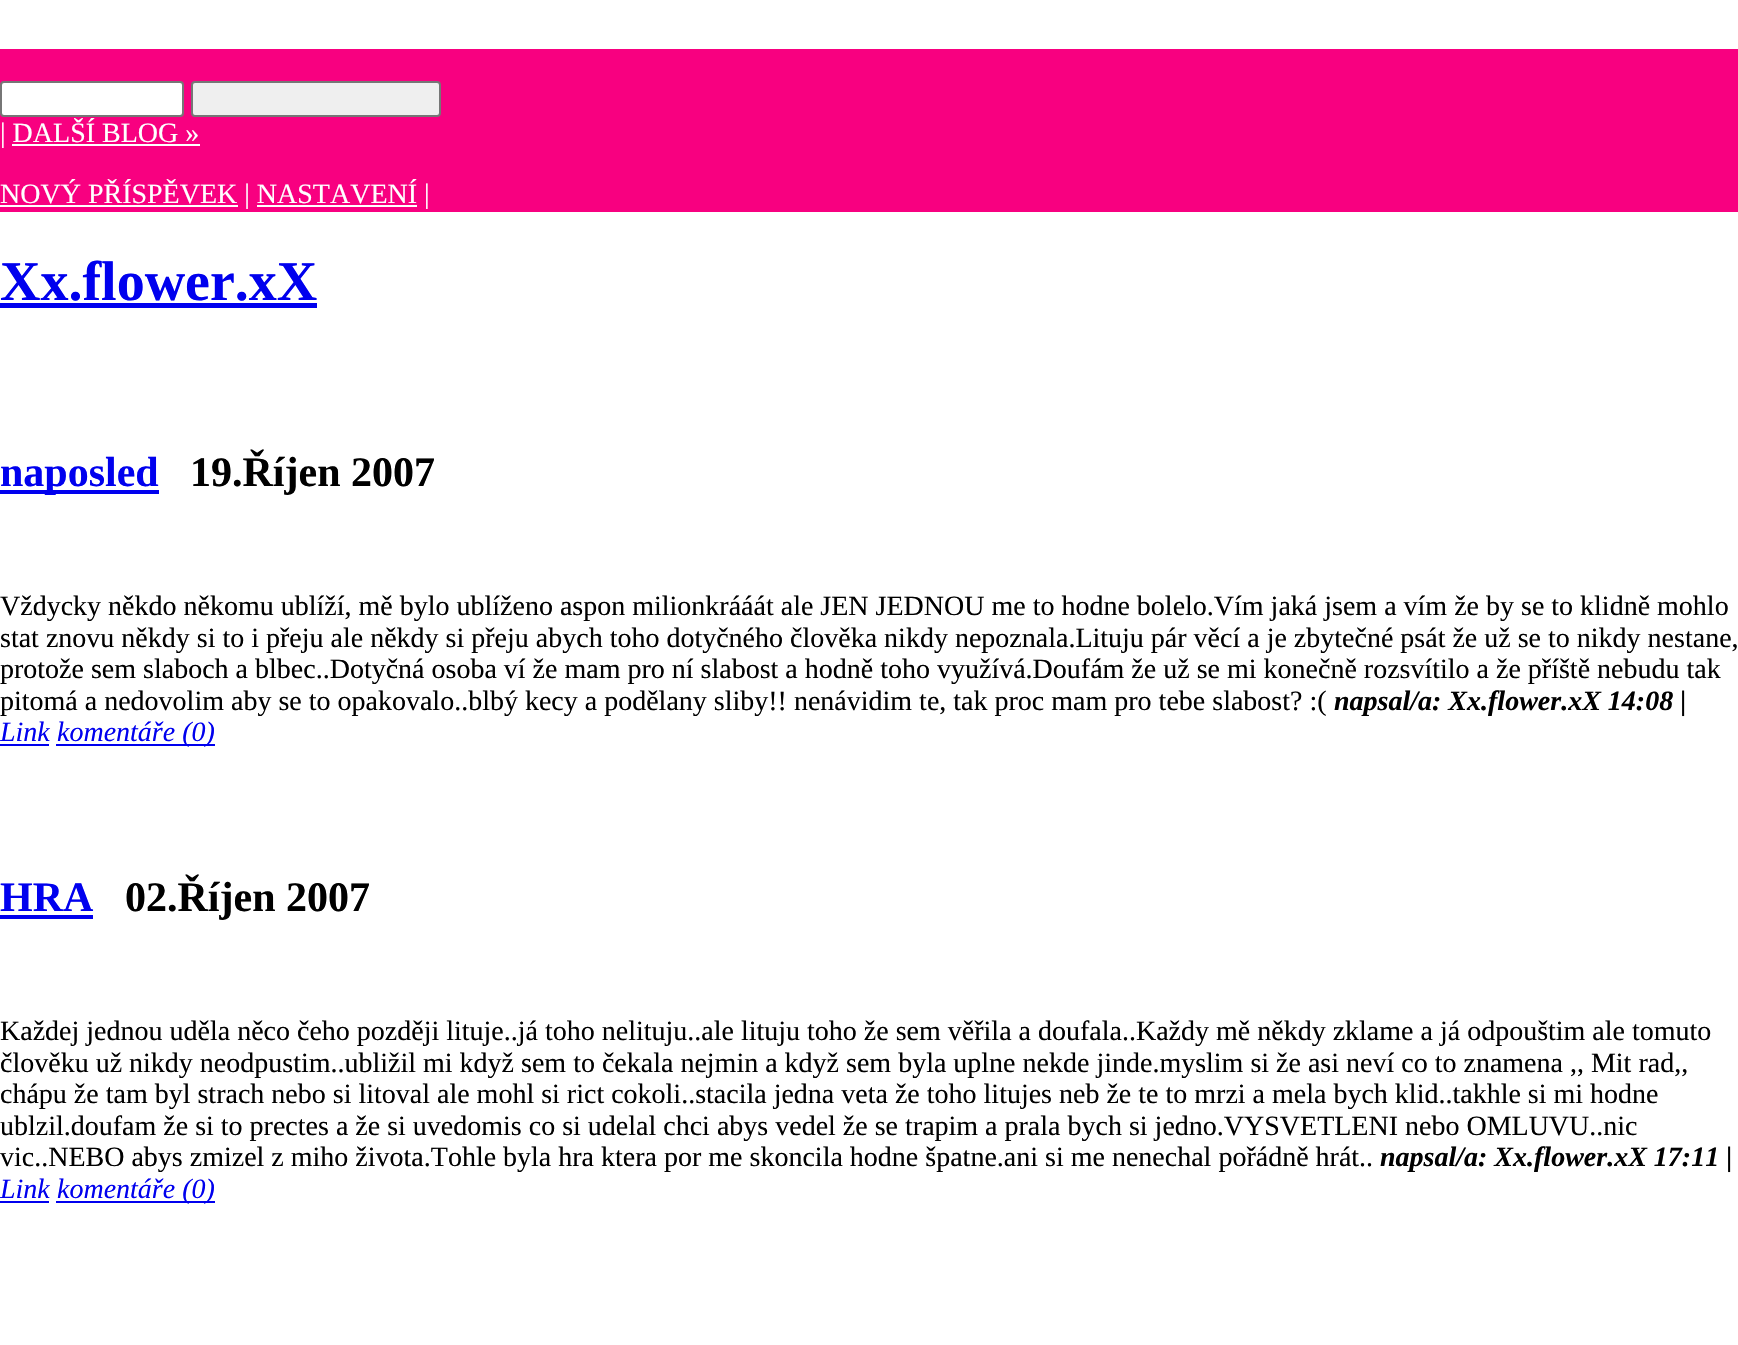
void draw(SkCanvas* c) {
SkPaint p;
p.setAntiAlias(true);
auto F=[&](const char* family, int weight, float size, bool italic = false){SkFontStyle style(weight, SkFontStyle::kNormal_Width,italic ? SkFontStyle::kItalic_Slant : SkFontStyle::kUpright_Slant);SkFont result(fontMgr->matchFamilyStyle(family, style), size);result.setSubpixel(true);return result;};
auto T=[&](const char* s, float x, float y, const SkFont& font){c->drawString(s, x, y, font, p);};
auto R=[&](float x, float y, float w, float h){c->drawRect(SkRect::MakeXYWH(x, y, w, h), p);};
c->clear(0xffffffff);
p.setColor(0xfff80080);
R(0,49,1738,163);
p.setColor(0xffffffff);
c->drawRoundRect(SkRect::MakeXYWH(1,82,182,34),3,3,p);
p.setStroke(true);
p.setStrokeWidth(2);
p.setColor(0xff767676);
c->drawRoundRect(SkRect::MakeXYWH(1,82,182,34),3,3,p);
p.setStroke(false);
p.setColor(0xffefefef);
c->drawRoundRect(SkRect::MakeXYWH(192,82,248,34),3,3,p);
p.setStroke(true);
p.setColor(0xff767676);
c->drawRoundRect(SkRect::MakeXYWH(192,82,248,34),3,3,p);
auto f1 = F("Liberation Serif",400,28);
p.setStroke(false);
p.setColor(0xffffffff);
T("| DALŠÍ BLOG »",0,142,f1);
R(12,144,188,2);
R(0,205,238,2);
T("NOVÝ PŘÍSPĚVEK | NASTAVENÍ |",0,203,f1);
R(257,205,160,2);
auto f2 = F("Liberation Serif",700,56);
p.setColor(0xff0000ee);
T("Xx.flower.xX",0,300,f2);
R(0,303,317,5);
R(0,490,159,4);
auto f3 = F("Liberation Serif",700,42);
T("naposled",0,486,f3);
p.setColor(0xff000000);
T("19.Říjen 2007",190,486,f3);
T("Vždycky někdo někomu ublíží, mě bylo ublíženo aspon milionkrááát ale JEN JEDNOU me to hodne bolelo.Vím jaká jsem a vím že by se to klidně mohlo",0,615,f1);
T("stat znovu někdy si to i přeju ale někdy si přeju abych toho dotyčného člověka nikdy nepoznala.Lituju pár věcí a je zbytečné psát že už se to nikdy nestane,",0,647,f1);
T("protože sem slaboch a blbec..Dotyčná osoba ví že mam pro ní slabost a hodně toho využívá.Doufám že už se mi konečně rozsvítilo a že příště nebudu tak",0,678,f1);
T("pitomá a nedovolim aby se to opakovalo..blbý kecy a podělany sliby!! nenávidim te, tak proc mam pro tebe slabost? :(",0,710,f1);
auto f4 = F("Liberation Serif",700,28,true);
T("napsal/a: Xx.flower.xX 14:08 |",1334,710,f4);
auto f5 = F("Liberation Serif",400,28,true);
p.setColor(0xff0000ee);
T("Link",0,741,f5);
R(0,744,49,2);
R(56,744,159,2);
T("komentáře (0)",57,741,f5);
T("HRA",0,911,f3);
R(0,915,93,4);
p.setColor(0xff000000);
T("02.Říjen 2007",125,911,f3);
T("Každej jednou uděla něco čeho později lituje..já toho nelituju..ale lituju toho že sem věřila a doufala..Každy mě někdy zklame a já odpouštim ale tomuto",0,1040,f1);
T("člověku už nikdy neodpustim..ubližil mi když sem to čekala nejmin a když sem byla uplne nekde jinde.myslim si že asi neví co to znamena ,, Mit rad,,",0,1072,f1);
T("chápu že tam byl strach nebo si litoval ale mohl si rict cokoli..stacila jedna veta že toho litujes neb že te to mrzi a mela bych klid..takhle si mi hodne",0,1103,f1);
T("ublzil.doufam že si to prectes a že si uvedomis co si udelal chci abys vedel že se trapim a prala bych si jedno.VYSVETLENI nebo OMLUVU..nic",0,1135,f1);
T("vic..NEBO abys zmizel z miho života.Tohle byla hra ktera por me skoncila hodne špatne.ani si me nenechal pořádně hrát..",0,1166,f1);
T("napsal/a: Xx.flower.xX 17:11 |",1380,1166,f4);
p.setColor(0xff0000ee);
T("Link",0,1198,f5);
R(0,1201,49,2);
R(56,1201,159,2);
T("komentáře (0)",57,1198,f5);
}
